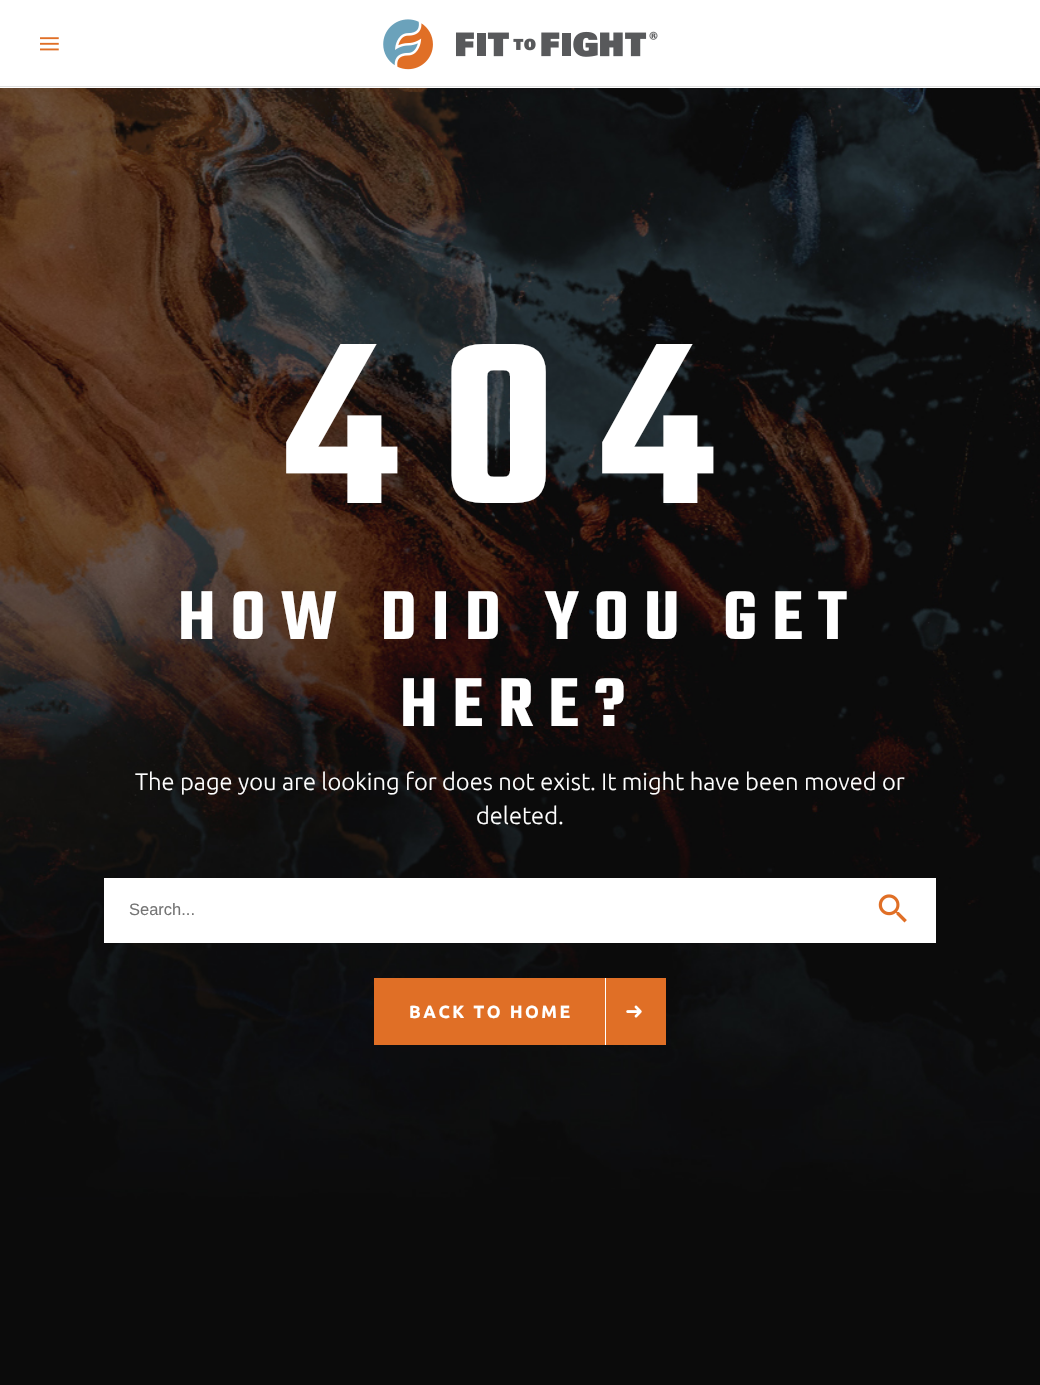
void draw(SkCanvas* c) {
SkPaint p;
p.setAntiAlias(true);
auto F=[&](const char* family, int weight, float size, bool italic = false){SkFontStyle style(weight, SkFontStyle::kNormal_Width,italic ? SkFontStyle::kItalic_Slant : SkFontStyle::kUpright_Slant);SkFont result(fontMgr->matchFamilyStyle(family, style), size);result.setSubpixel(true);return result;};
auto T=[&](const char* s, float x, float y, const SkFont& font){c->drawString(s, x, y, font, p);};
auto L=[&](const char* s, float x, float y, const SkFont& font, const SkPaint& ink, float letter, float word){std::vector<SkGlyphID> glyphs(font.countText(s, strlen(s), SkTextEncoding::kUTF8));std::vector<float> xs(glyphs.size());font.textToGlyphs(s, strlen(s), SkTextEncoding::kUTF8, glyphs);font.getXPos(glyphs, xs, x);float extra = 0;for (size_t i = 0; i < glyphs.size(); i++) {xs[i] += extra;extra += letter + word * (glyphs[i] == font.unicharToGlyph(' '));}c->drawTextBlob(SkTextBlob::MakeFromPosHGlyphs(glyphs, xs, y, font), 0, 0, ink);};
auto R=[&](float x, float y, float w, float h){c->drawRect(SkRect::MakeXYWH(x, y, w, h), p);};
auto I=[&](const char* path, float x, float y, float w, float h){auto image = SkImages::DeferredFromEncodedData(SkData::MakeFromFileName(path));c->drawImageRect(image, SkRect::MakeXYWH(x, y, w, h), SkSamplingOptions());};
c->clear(0xffffffff);
p.setColor(0xffe1e1e1);
R(0,86,1040,1);
I("1.png",40,37,19,14);
I("2.png",383,19,275,51);
I("3.png",0,88,1040,1297);
auto f1 = F("Teko",600,250);
p.setColor(0xffffffff);
L("404",284,503,f1,p,44,0);
auto f2 = F("Teko",600,75);
L("HOW DID YOU GET",178,639,f2,p,15,0);
L("HERE?",400,726,f2,p,15,0);
auto f3 = F("Ubuntu",300,23.75);
T("The page you are looking for does not exist. It might have been moved or",135,790,f3);
T("deleted.",476,824,f3);
R(104,878,832,65);
auto f4 = F("Liberation Sans",400,16.5);
p.setColor(0xff757575);
T("Search...",129,915,f4);
I("4.png",878,894,29,29);
p.setColor(0xffe06f26);
R(374,978,292,67);
auto f5 = F("Ubuntu",700,17.5);
p.setColor(0xffffffff);
L("BACK TO HOME",409,1018,f5,p,2.5,0);
R(605,978,1,67);
I("5.png",626,1005,16,13);
}
